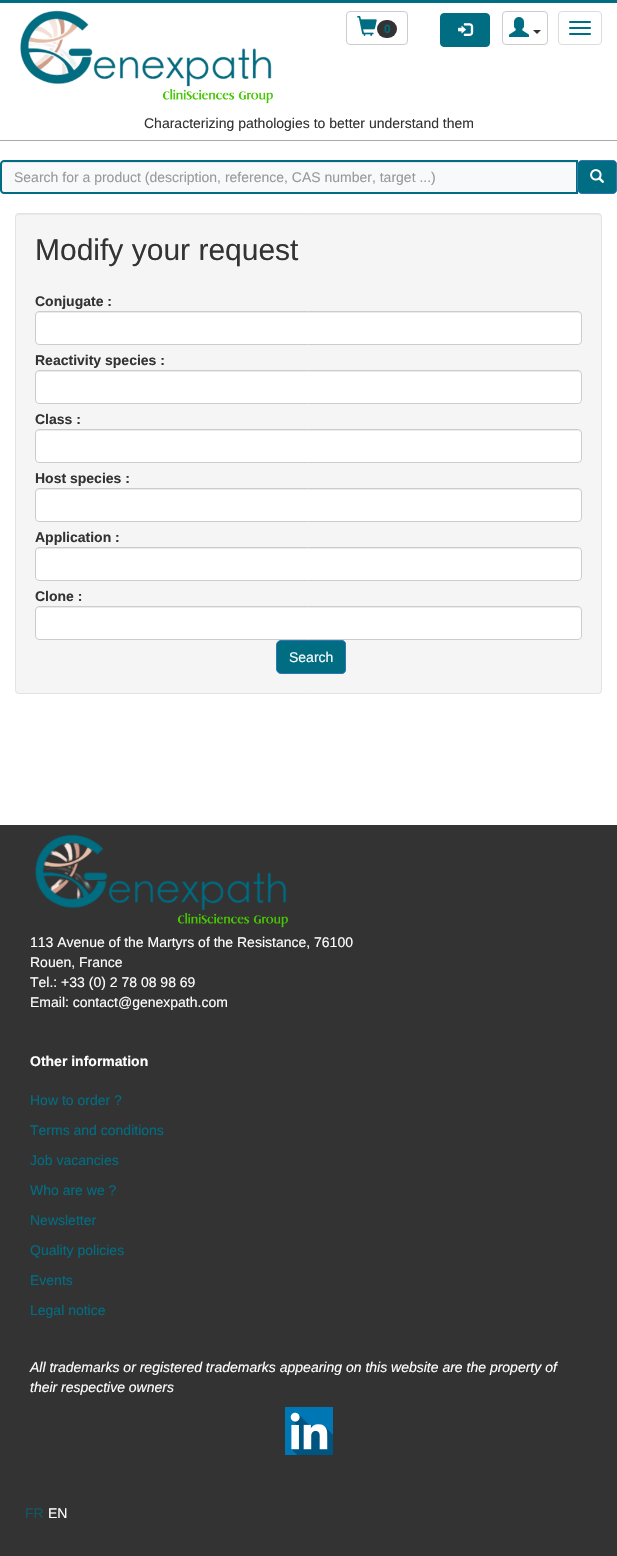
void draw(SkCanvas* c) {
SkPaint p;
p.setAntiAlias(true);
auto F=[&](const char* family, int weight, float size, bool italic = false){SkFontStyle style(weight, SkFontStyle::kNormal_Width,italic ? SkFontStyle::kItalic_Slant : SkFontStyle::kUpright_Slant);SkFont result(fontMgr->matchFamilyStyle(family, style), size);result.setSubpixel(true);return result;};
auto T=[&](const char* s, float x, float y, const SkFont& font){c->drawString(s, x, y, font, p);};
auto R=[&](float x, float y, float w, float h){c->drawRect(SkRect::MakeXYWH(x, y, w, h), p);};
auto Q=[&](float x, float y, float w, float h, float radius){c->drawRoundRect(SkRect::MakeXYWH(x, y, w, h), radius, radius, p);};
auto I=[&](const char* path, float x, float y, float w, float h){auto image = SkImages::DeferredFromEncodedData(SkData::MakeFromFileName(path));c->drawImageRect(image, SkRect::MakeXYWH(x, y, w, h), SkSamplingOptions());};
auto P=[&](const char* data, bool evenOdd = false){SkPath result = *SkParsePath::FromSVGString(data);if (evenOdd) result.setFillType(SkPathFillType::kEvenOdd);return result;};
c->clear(0xffffffff);
p.setColor(0xff006d82);
R(0,0,617,3);
p.setColor(0xffaaaaaa);
R(0,140,617,1);
I("1.png",20,10,253,94);
p.setStroke(true);
p.setStrokeWidth(1);
p.setColor(0xffcccccc);
c->drawRoundRect(SkRect::MakeXYWH(346.5,11.5,61,33),3.5,3.5,p);
I("2.png",357,16,20,20);
p.setStroke(false);
p.setColor(0xff333333);
Q(377,20,20,18,9);
auto f1 = F("Liberation Sans",700,12);
p.setColor(0xff006d82);
T("0",384,33,f1);
c->drawRoundRect(SkRect::MakeXYWH(440.5,13.5,49,33),3.5,3.5,p);
p.setStroke(true);
c->drawRoundRect(SkRect::MakeXYWH(440.5,13.5,49,33),3.5,3.5,p);
I("3.png",458,23,16,13);
p.setColor(0xffcccccc);
c->drawRoundRect(SkRect::MakeXYWH(502.5,11.5,45,33),3.5,3.5,p);
I("4.png",509,17,20,20);
p.setStroke(false);
p.setColor(0xff333333);
c->drawPath(P("M533 30h8l-4 4z"),p);
p.setStroke(true);
p.setColor(0xffdddddd);
c->drawRoundRect(SkRect::MakeXYWH(558.5,11.5,43,33),3.5,3.5,p);
p.setStroke(false);
p.setColor(0xff006d82);
Q(569,21,22,2,1);
Q(569,27,22,2,1);
Q(569,33,22,2,1);
auto f2 = F("Liberation Sans",400,14);
p.setColor(0xff333333);
T("Characterizing pathologies to better understand them",144,128,f2);
p.setColor(0xfff8f9fa);
c->drawPath(P("M4 160h574v34h-574c-2 0-4-2-4-4v-26c0-2 2-4 4-4z"),p);
p.setColor(0xffe5e6e7);
c->drawPath(P("M4 163h572v-1h-572l-2 1v2c0-1 1-2 2-2z"),p);
p.setStroke(true);
p.setStrokeWidth(2);
p.setColor(0xff006d82);
c->drawPath(P("M4 161h573v32h-573c-1.5 0-3-1.5-3-3v-26c0-1.5 1.5-3 3-3z"),p);
p.setStroke(false);
p.setColor(0xff999999);
T("Search for a product (description, reference, CAS number, target ...)",14,182,f2);
p.setColor(0xff006d82);
c->drawPath(P("M582 160.5h31c2 0 3.5 1.5 3.5 3.5v26c0 2-1.5 3.5-3.5 3.5h-31c-2.5 0-4.5-2-4.5-4.5v-24c0-2.5 2-4.5 4.5-4.5z"),p);
p.setStroke(true);
p.setStrokeWidth(1);
p.setColor(0xff3276b1);
c->drawPath(P("M582 160.5h31c2 0 3.5 1.5 3.5 3.5v26c0 2-1.5 3.5-3.5 3.5h-31c-2.5 0-4.5-2-4.5-4.5v-24c0-2.5 2-4.5 4.5-4.5z"),p);
I("5.png",590,169,15,14);
p.setStroke(false);
p.setColor(0xfff5f5f5);
Q(15,213,587,481,4);
p.setColor(0xffe9e9e9);
c->drawPath(P("M19 215h579c2 0 3 1 3 3v-1c0-2-1-3-3-3h-579c-2 0-3 1-3 3v1c0-2 1-3 3-3z"),p);
p.setStroke(true);
p.setColor(0xffe3e3e3);
c->drawRoundRect(SkRect::MakeXYWH(15.5,213.5,586,480),3.5,3.5,p);
auto f3 = F("Liberation Sans",400,30);
p.setStroke(false);
p.setColor(0xff333333);
T("Modify your request",35,260,f3);
auto f4 = F("Liberation Sans",700,14);
T("Conjugate :",35,306,f4);
p.setColor(0xffffffff);
Q(35,311,547,34,4);
p.setColor(0xffececec);
c->drawPath(P("M39 313h539c2 0 3 1 3 3v-1c0-2-1-3-3-3h-539c-2 0-3 1-3 3v1c0-2 1-3 3-3z"),p);
p.setStroke(true);
p.setColor(0xffcccccc);
c->drawRoundRect(SkRect::MakeXYWH(35.5,311.5,546,33),3.5,3.5,p);
p.setStroke(false);
p.setColor(0xff333333);
T("Reactivity species :",35,365,f4);
p.setColor(0xffffffff);
Q(35,370,547,34,4);
p.setColor(0xffececec);
c->drawPath(P("M39 372h539c2 0 3 1 3 3v-1c0-2-1-3-3-3h-539c-2 0-3 1-3 3v1c0-2 1-3 3-3z"),p);
p.setStroke(true);
p.setColor(0xffcccccc);
c->drawRoundRect(SkRect::MakeXYWH(35.5,370.5,546,33),3.5,3.5,p);
p.setStroke(false);
p.setColor(0xff333333);
T("Class :",35,424,f4);
p.setColor(0xffffffff);
Q(35,429,547,34,4);
p.setColor(0xffececec);
c->drawPath(P("M39 431h539c2 0 3 1 3 3v-1c0-2-1-3-3-3h-539c-2 0-3 1-3 3v1c0-2 1-3 3-3z"),p);
p.setStroke(true);
p.setColor(0xffcccccc);
c->drawRoundRect(SkRect::MakeXYWH(35.5,429.5,546,33),3.5,3.5,p);
p.setStroke(false);
p.setColor(0xff333333);
T("Host species :",35,483,f4);
p.setColor(0xffffffff);
Q(35,488,547,34,4);
p.setColor(0xffececec);
c->drawPath(P("M39 490h539c2 0 3 1 3 3v-1c0-2-1-3-3-3h-539c-2 0-3 1-3 3v1c0-2 1-3 3-3z"),p);
p.setStroke(true);
p.setColor(0xffcccccc);
c->drawRoundRect(SkRect::MakeXYWH(35.5,488.5,546,33),3.5,3.5,p);
p.setStroke(false);
p.setColor(0xff333333);
T("Application :",35,542,f4);
p.setColor(0xffffffff);
Q(35,547,547,34,4);
p.setColor(0xffececec);
c->drawPath(P("M39 549h539c2 0 3 1 3 3v-1c0-2-1-3-3-3h-539c-2 0-3 1-3 3v1c0-2 1-3 3-3z"),p);
p.setStroke(true);
p.setColor(0xffcccccc);
c->drawRoundRect(SkRect::MakeXYWH(35.5,547.5,546,33),3.5,3.5,p);
p.setStroke(false);
p.setColor(0xff333333);
T("Clone :",35,601,f4);
p.setColor(0xffffffff);
Q(35,606,547,34,4);
p.setColor(0xffececec);
c->drawPath(P("M39 608h539c2 0 3 1 3 3v-1c0-2-1-3-3-3h-539c-2 0-3 1-3 3v1c0-2 1-3 3-3z"),p);
p.setStroke(true);
p.setColor(0xffcccccc);
c->drawRoundRect(SkRect::MakeXYWH(35.5,606.5,546,33),3.5,3.5,p);
p.setStroke(false);
p.setColor(0xff006d82);
c->drawPath(P("M281 640.5h61c2 0 3.5 1.5 3.5 3.5v26c0 2-1.5 3.5-3.5 3.5h-61c-2.5 0-4.5-2-4.5-4.5v-24c0-2.5 2-4.5 4.5-4.5z"),p);
p.setStroke(true);
p.setColor(0xff3276b1);
c->drawPath(P("M281 640.5h61c2 0 3.5 1.5 3.5 3.5v26c0 2-1.5 3.5-3.5 3.5h-61c-2.5 0-4.5-2-4.5-4.5v-24c0-2.5 2-4.5 4.5-4.5z"),p);
p.setStroke(false);
p.setColor(0xffffffff);
T("Search",289,662,f2);
p.setColor(0xff333333);
R(0,825,617,731);
I("6.png",35,834,253,94);
p.setColor(0xffffffff);
T("113 Avenue of the Martyrs of the Resistance, 76100",30,947,f2);
T("Rouen, France",30,967,f2);
T("Tel.: +33 (0) 2 78 08 98 69",30,987,f2);
T("Email: contact@genexpath.com",30,1007,f2);
T("Other information",30,1066,f4);
p.setColor(0xff006d82);
T("How to order ?",30,1105,f2);
T("Terms and conditions",30,1135,f2);
T("Job vacancies",30,1165,f2);
T("Who are we ?",30,1195,f2);
T("Newsletter",30,1225,f2);
T("Quality policies",30,1255,f2);
T("Events",30,1285,f2);
T("Legal notice",30,1315,f2);
auto f5 = F("Liberation Sans",400,14,true);
p.setColor(0xffffffff);
T("All trademarks or registered trademarks appearing on this website are the property of",30,1372,f5);
T("their respective owners",30,1392,f5);
I("7.png",285,1407,48,48);
p.setColor(0xff145662);
T("FR",25,1518,f2);
p.setColor(0xffffffff);
T("EN",48,1518,f2);
}
